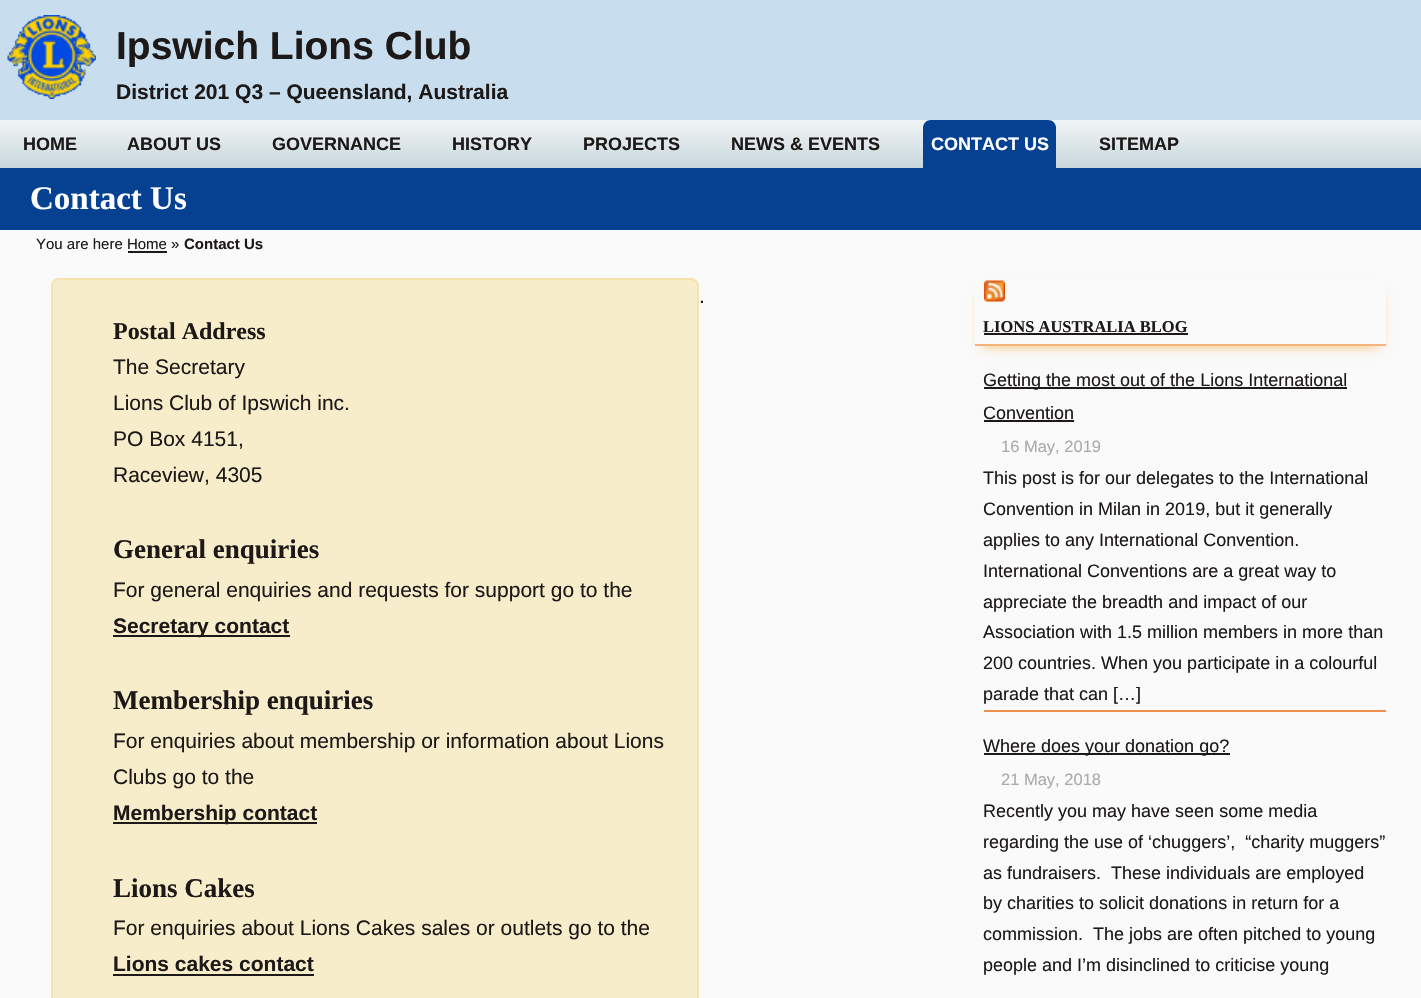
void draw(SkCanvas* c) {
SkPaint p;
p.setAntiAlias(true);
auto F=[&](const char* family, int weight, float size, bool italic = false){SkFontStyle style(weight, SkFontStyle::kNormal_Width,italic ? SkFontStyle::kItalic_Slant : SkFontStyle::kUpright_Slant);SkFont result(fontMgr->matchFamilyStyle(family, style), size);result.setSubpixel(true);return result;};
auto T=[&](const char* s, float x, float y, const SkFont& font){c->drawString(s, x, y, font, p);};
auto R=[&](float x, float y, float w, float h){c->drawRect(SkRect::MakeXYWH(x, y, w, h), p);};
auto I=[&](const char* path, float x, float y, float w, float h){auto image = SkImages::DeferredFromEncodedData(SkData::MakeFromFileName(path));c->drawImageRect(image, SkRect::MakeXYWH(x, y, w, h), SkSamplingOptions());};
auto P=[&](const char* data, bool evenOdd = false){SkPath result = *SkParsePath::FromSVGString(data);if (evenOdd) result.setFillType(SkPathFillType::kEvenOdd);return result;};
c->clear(0xffc8dded);
I("1.png",7,15,89,84);
auto f1 = F("Liberation Sans",700,39);
p.setColor(0xff1c1918);
T("Ipswich Lions Club",116,59,f1);
auto f2 = F("Liberation Sans",700,21);
T("District 201 Q3 – Queensland, Australia",116,99,f2);
{
const SkColor colors[] = {0xfff2f5f6,0xffc8d7dc};
const float stops[] = {0,1};
const SkPoint ends[] = {{711,120}, {711,168}};
p.setShader(SkGradientShader::MakeLinear(ends, colors, stops, 2, SkTileMode::kClamp));
p.setAlpha(255);
}
R(0,120,1421,48);
auto f3 = F("Liberation Sans",700,18);
p.setShader(nullptr);
p.setColor(0xff1c1918);
T("HOME",23,150,f3);
T("ABOUT US",127,150,f3);
T("GOVERNANCE",272,150,f3);
T("HISTORY",452,150,f3);
T("PROJECTS",583,150,f3);
T("NEWS & EVENTS",731,150,f3);
p.setColor(0xff054091);
c->drawPath(P("M931 120h117c4.5 0 8 3.5 8 8v40h-133v-40c0-4.5 3.5-8 8-8z"),p);
p.setColor(0xffffffff);
T("CONTACT US",931,150,f3);
p.setColor(0xff1c1918);
T("SITEMAP",1099,150,f3);
p.setColor(0xff054091);
R(0,168,1421,62);
auto f4 = F("Liberation Serif",700,33);
p.setColor(0xffffffff);
T("Contact Us",30,209,f4);
p.setColor(0xfffafafa);
R(0,230,1421,768);
auto f5 = F("Liberation Sans",400,15);
p.setColor(0xff1c1918);
T("You are here Home »",36,249,f5);
auto f6 = F("Liberation Sans",700,15);
T("Contact Us",184,249,f6);
R(128,251,39,2);
auto f7 = F("Liberation Sans",400,21);
T(".",699,303,f7);
p.setColor(0xfff8edca);
c->drawRoundRect(SkRect::MakeXYWH(52,279,646,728),7,7,p);
p.setStroke(true);
p.setStrokeWidth(2);
p.setColor(0xfff4e3af);
c->drawRoundRect(SkRect::MakeXYWH(52,279,646,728),7,7,p);
auto f8 = F("Liberation Serif",700,24);
p.setStroke(false);
p.setColor(0xff1c1918);
T("Postal Address",113,339,f8);
T("The Secretary",113,374,f7);
T("Lions Club of Ipswich inc.",113,410,f7);
T("PO Box 4151,",113,446,f7);
T("Raceview, 4305",113,482,f7);
auto f9 = F("Liberation Serif",700,27);
T("General enquiries",113,558,f9);
T("For general enquiries and requests for support go to the",113,597,f7);
R(113,635,177,2);
T("Secretary contact",113,633,f2);
T("Membership enquiries",113,709,f9);
T("For enquiries about membership or information about Lions",113,748,f7);
T("Clubs go to the",113,784,f7);
R(113,822,204,2);
T("Membership contact",113,820,f2);
T("Lions Cakes",113,897,f9);
T("For enquiries about Lions Cakes sales or outlets go to the",113,935,f7);
T("Lions cakes contact",113,971,f2);
R(113,974,201,2);
c->save();
c->clipPath(P("M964 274h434v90h-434zm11 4h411v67h-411z",true),true);
p.setColor(0xfff6b04d);
p.setMaskFilter(SkMaskFilter::MakeBlur(kNormal_SkBlurStyle, 6));
c->drawRect(SkRect::MakeXYWH(983,293,396,52),p);
p.setMaskFilter(nullptr);
c->restore();
p.setColor(0xfff4b27c);
R(975,344,411,2);
I("2.png",984,280,21,22);
auto f10 = F("Liberation Serif",700,16.5);
p.setColor(0xff1c1918);
T("LIONS AUSTRALIA BLOG",983,332,f10);
R(984,333,204,2);
p.setColor(0xfff19150);
R(984,710,402,2);
p.setColor(0xff1c1918);
R(984,387,363,2);
auto f11 = F("Liberation Sans",400,18);
T("Getting the most out of the Lions International",983,386,f11);
T("Convention",983,419,f11);
R(984,420,90,2);
auto f12 = F("Liberation Sans",400,16.5);
p.setColor(0xffaaaaaa);
T("16 May, 2019",1001,452,f12);
p.setColor(0xff1c1918);
T("This post is for our delegates to the International",983,484,f11);
T("Convention in Milan in 2019, but it generally",983,515,f11);
T("applies to any International Convention.",983,546,f11);
T("International Conventions are a great way to",983,577,f11);
T("appreciate the breadth and impact of our",983,608,f11);
T("Association with 1.5 million members in more than",983,638,f11);
T("200 countries. When you participate in a colourful",983,669,f11);
T("parade that can […]",983,700,f11);
R(984,753,246,2);
T("Where does your donation go?",983,752,f11);
p.setColor(0xffaaaaaa);
T("21 May, 2018",1001,785,f12);
p.setColor(0xff1c1918);
T("Recently you may have seen some media",983,817,f11);
T("regarding the use of ‘chuggers’,  “charity muggers”",983,848,f11);
T("as fundraisers.  These individuals are employed",983,879,f11);
T("by charities to solicit donations in return for a",983,909,f11);
T("commission.  The jobs are often pitched to young",983,940,f11);
T("people and I’m disinclined to criticise young",983,971,f11);
}
